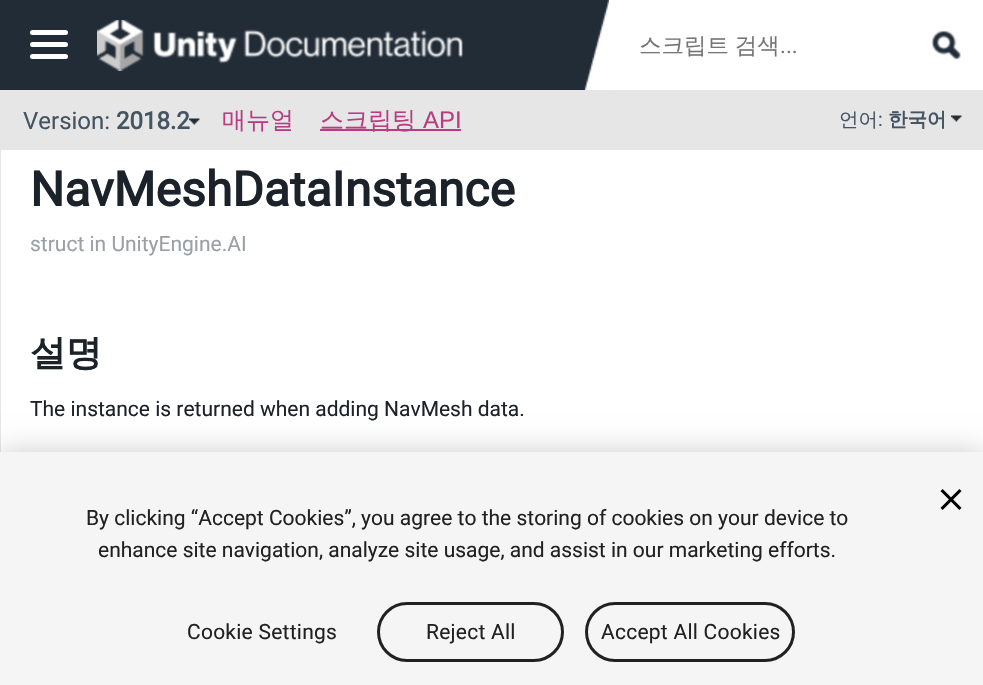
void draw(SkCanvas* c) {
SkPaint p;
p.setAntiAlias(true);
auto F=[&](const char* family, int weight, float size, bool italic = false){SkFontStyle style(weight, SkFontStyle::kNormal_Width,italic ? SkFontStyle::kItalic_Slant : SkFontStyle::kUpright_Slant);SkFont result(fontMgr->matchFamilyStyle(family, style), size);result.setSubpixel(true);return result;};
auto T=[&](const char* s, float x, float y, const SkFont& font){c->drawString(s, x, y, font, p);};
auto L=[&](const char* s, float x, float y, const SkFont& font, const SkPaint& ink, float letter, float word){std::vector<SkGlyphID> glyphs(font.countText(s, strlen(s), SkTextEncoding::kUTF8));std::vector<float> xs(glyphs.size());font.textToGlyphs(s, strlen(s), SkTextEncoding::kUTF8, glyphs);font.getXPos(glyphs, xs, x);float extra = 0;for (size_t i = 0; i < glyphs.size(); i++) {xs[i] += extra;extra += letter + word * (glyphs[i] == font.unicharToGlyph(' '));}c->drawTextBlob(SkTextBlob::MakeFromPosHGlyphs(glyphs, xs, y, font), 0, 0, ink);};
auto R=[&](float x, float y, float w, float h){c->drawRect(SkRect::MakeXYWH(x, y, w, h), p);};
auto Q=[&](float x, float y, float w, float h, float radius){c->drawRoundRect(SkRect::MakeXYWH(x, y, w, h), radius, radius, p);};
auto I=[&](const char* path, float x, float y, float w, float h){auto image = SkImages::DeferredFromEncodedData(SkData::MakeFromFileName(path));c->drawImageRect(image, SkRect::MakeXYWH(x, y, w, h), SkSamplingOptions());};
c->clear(0xffffffff);
p.setColor(0xff222c37);
R(0,0,609,90);
p.setColor(0xffffffff);
Q(30,30,38,5,2.5);
Q(30,42,38,5,2.5);
Q(30,54,38,5,2.5);
I("1.png",97,20,366,51);
I("2.png",584,0,25,90);
auto f1 = F("WenQuanYi Zen Hei",500,22.5);
p.setColor(0xff757575);
L("스크립트 검색",639,53,f1,p,0,-1);
auto f2 = F("Roboto",400,22.5);
T("...",780,53,f2);
I("3.png",931,30,30,30);
p.setColor(0xffe6e6e6);
R(0,90,983,60);
auto f3 = F("Roboto",400,24);
p.setColor(0xff455463);
T("Version:",23,129,f3);
auto f4 = F("Roboto",700,24);
T("2018.2",116,129,f4);
I("4.png",189,118,11,7);
auto f5 = F("WenQuanYi Zen Hei",500,24);
p.setColor(0xffb83c82);
T("매뉴얼",222,128,f5);
R(320,129,141,2);
T("스크립팅",320,128,f5);
auto f6 = F("Liberation Sans",400,24);
T("API",423,128,f6);
auto f7 = F("WenQuanYi Zen Hei",500,19.5);
p.setColor(0xff455463);
T("언어",839,126,f7);
auto f8 = F("Roboto",400,19.5);
T(":",878,126,f8);
auto f9 = F("WenQuanYi Zen Hei",700,19.5);
T("한국어",888,126,f9);
I("5.png",951,115,11,7);
p.setColor(0xffe6e6e6);
R(0,150,1,302);
auto f10 = F("Roboto",700,48);
p.setColor(0xff1b2229);
T("NavMeshDataInstance",30,206,f10);
auto f11 = F("Roboto",400,21);
p.setColor(0xff99a0a7);
T("struct in UnityEngine.AI",30,251,f11);
auto f12 = F("WenQuanYi Zen Hei",700,36);
p.setColor(0xff1b2229);
T("설명",30,365,f12);
T("The instance is returned when adding NavMesh data.",30,416,f11);
p.setColor(0x33000000);
p.setMaskFilter(SkMaskFilter::MakeBlur(kNormal_SkBlurStyle, 13.5));
c->drawRect(SkRect::MakeXYWH(0,452,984,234),p);
p.setMaskFilter(nullptr);
p.setColor(0xfff5f5f5);
R(0,452,983,233);
I("6.png",940,489,22,21);
p.setColor(0xff212121);
T("By clicking “Accept Cookies”, you agree to the storing of cookies on your device to",86,525,f11);
T("enhance site navigation, analyze site usage, and assist in our marketing efforts.",98,557,f11);
L("Cookie Settings",187,639,f11,p,.25,0);
p.setStroke(true);
p.setStrokeWidth(3);
c->drawRoundRect(SkRect::MakeXYWH(378.5,603.5,184,57),28.5,28.5,p);
p.setStroke(false);
L("Reject All",426,639,f11,p,.25,0);
p.setStroke(true);
c->drawRoundRect(SkRect::MakeXYWH(586.5,603.5,207,57),28.5,28.5,p);
p.setStroke(false);
L("Accept All Cookies",601,639,f11,p,.25,0);
}
